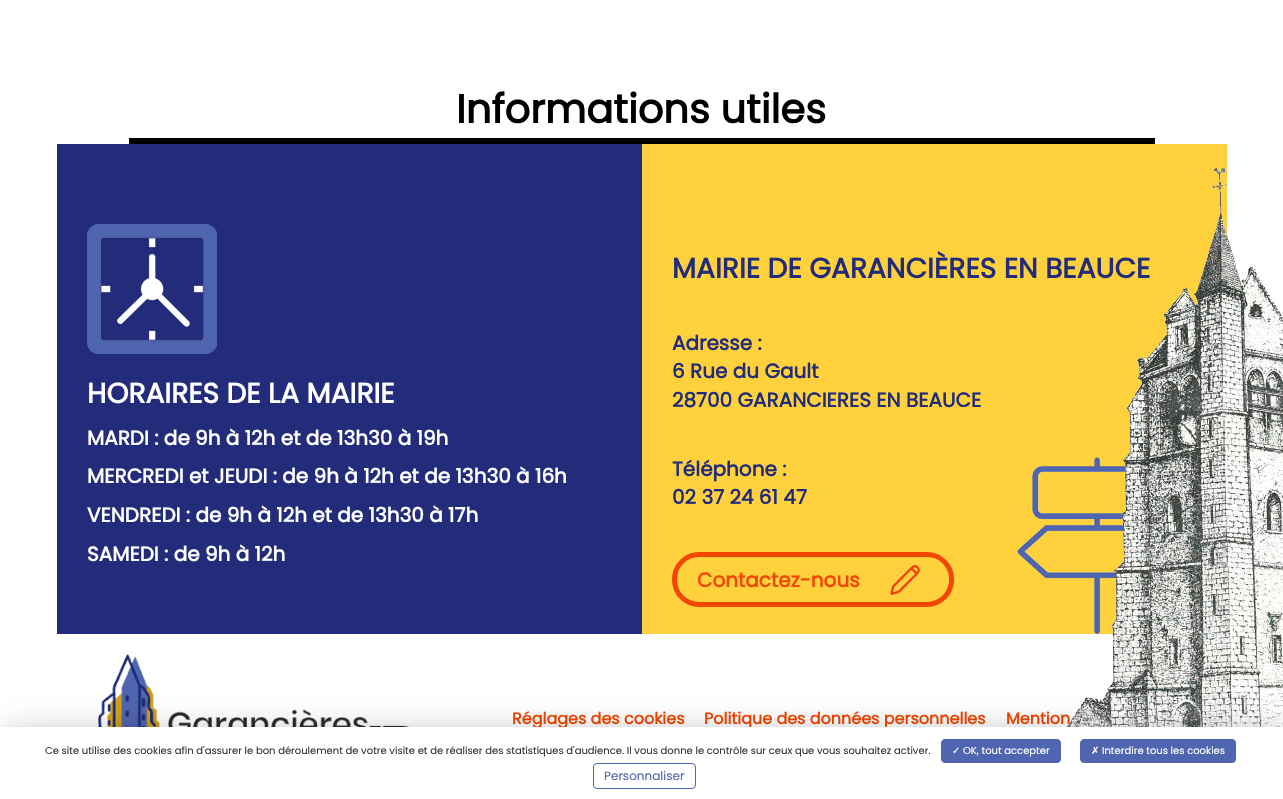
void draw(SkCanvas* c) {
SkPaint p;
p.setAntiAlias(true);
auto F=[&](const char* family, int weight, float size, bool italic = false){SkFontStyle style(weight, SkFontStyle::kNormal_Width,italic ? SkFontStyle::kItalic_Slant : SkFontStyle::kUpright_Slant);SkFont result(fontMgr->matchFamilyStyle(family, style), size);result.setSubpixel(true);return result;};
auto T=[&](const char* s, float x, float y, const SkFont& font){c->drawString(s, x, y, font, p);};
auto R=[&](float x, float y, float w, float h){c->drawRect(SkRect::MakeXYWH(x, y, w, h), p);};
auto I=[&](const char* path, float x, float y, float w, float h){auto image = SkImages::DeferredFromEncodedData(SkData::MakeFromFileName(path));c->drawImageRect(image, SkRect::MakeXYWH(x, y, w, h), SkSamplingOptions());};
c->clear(0xffffffff);
auto f1 = F("Poppins",700,40);
p.setColor(0xff000000);
T("Informations utiles",456,123,f1);
R(129,138,1026,6);
p.setColor(0xff222c7a);
R(57,144,585,490);
I("1.png",87,224,130,130);
auto f2 = F("Poppins",700,28);
p.setColor(0xffffffff);
T("HORAIRES DE LA MAIRIE",87,403,f2);
auto f3 = F("Poppins",700,20);
T("MARDI : de 9h à 12h et de 13h30 à 19h",87,445,f3);
T("MERCREDI et JEUDI : de 9h à 12h et de 13h30 à 16h",87,483,f3);
T("VENDREDI : de 9h à 12h et de 13h30 à 17h",87,522,f3);
T("SAMEDI : de 9h à 12h",87,561,f3);
p.setColor(0xffffd23d);
R(642,144,585,490);
I("2.png",1017,457,109,177);
p.setColor(0xff222c7a);
T("MAIRIE DE GARANCIÈRES EN BEAUCE",672,278,f2);
T("Adresse :",672,350,f3);
T("6 Rue du Gault",672,378,f3);
T("28700 GARANCIERES EN BEAUCE",672,407,f3);
T("Téléphone :",672,476,f3);
T("02 37 24 61 47",672,504,f3);
I("3.png",890,565,30,30);
p.setStroke(true);
p.setStrokeWidth(5);
p.setColor(0xfff34601);
c->drawRoundRect(SkRect::MakeXYWH(674.5,554.5,277,50),24.5,24.5,p);
p.setStroke(false);
T("Contactez-nous",697,587,f3);
I("4.png",98,654,313,73);
auto f4 = F("Poppins",700,16);
T("Réglages des cookies",512,724,f4);
T("Politique des données personnelles",704,724,f4);
T("Mention",1006,724,f4);
I("5.png",1066,168,217,559);
p.setColor(0x66000000);
p.setMaskFilter(SkMaskFilter::MakeBlur(kNormal_SkBlurStyle, 18));
c->drawRect(SkRect::MakeXYWH(6,739,1277,60),p);
p.setMaskFilter(nullptr);
p.setColor(0xffffffff);
R(0,727,1283,72);
auto f5 = F("Poppins",400,10);
p.setColor(0xff333333);
T("Ce site utilise des cookies afin d'assurer le bon déroulement de votre visite et de réaliser des statistiques d'audience. Il vous donne le contrôle sur ceux que vous souhaitez activer.",45,754,f5);
p.setColor(0xff5065b0);
c->drawRoundRect(SkRect::MakeXYWH(941.5,739.5,119,23),3.5,3.5,p);
p.setStroke(true);
p.setStrokeWidth(1);
c->drawRoundRect(SkRect::MakeXYWH(941.5,739.5,119,23),3.5,3.5,p);
auto f6 = F("DejaVu Sans",400,10);
p.setStroke(false);
p.setColor(0xffffffff);
T("✓",952,754,f6);
T("OK, tout accepter",963,754,f5);
p.setColor(0xff5065b0);
c->drawRoundRect(SkRect::MakeXYWH(1080.5,739.5,155,23),3.5,3.5,p);
p.setStroke(true);
c->drawRoundRect(SkRect::MakeXYWH(1080.5,739.5,155,23),3.5,3.5,p);
p.setStroke(false);
p.setColor(0xffffffff);
T("✗",1091,754,f6);
T("Interdire tous les cookies",1102,754,f5);
p.setStroke(true);
p.setColor(0xff5065b0);
c->drawRoundRect(SkRect::MakeXYWH(593.5,763.5,102,25),3.5,3.5,p);
auto f7 = F("Poppins",400,12);
p.setStroke(false);
T("Personnaliser",604,780,f7);
}
